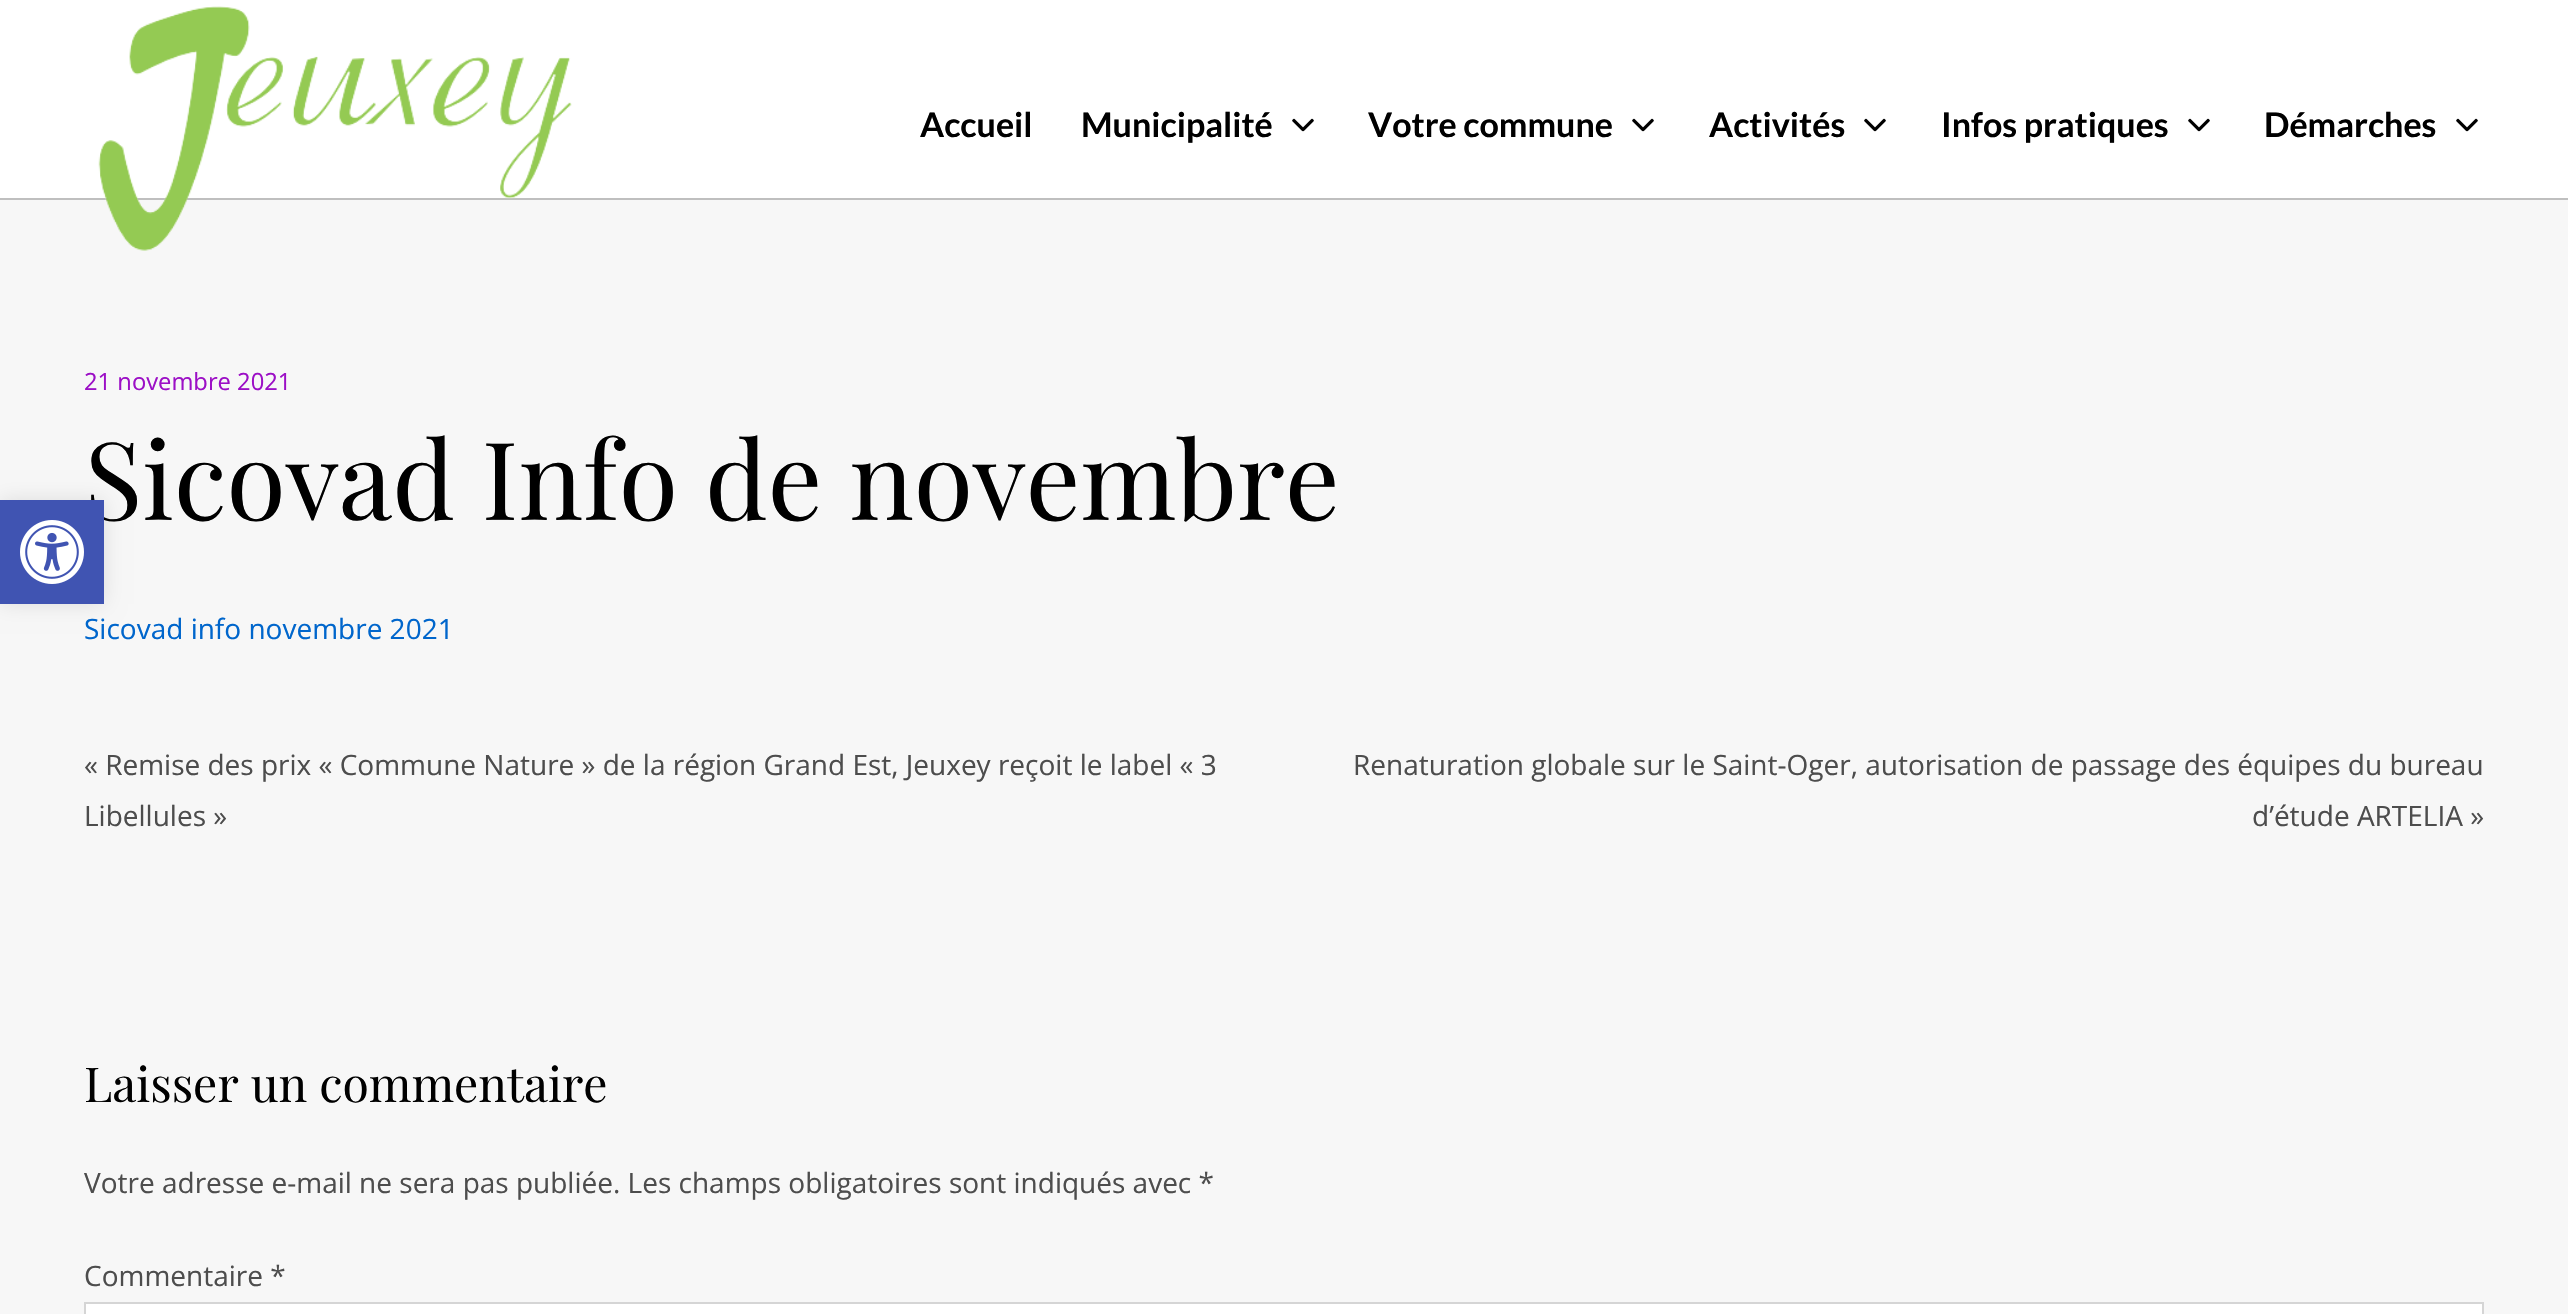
void draw(SkCanvas* c) {
SkPaint p;
p.setAntiAlias(true);
auto F=[&](const char* family, int weight, float size, bool italic = false){SkFontStyle style(weight, SkFontStyle::kNormal_Width,italic ? SkFontStyle::kItalic_Slant : SkFontStyle::kUpright_Slant);SkFont result(fontMgr->matchFamilyStyle(family, style), size);result.setSubpixel(true);return result;};
auto T=[&](const char* s, float x, float y, const SkFont& font){c->drawString(s, x, y, font, p);};
auto R=[&](float x, float y, float w, float h){c->drawRect(SkRect::MakeXYWH(x, y, w, h), p);};
auto I=[&](const char* path, float x, float y, float w, float h){auto image = SkImages::DeferredFromEncodedData(SkData::MakeFromFileName(path));c->drawImageRect(image, SkRect::MakeXYWH(x, y, w, h), SkSamplingOptions());};
c->clear(0xfff7f7f7);
p.setColor(0x1a000000);
p.setMaskFilter(SkMaskFilter::MakeBlur(kNormal_SkBlurStyle, 10));
c->drawRect(SkRect::MakeXYWH(0,500,104,104),p);
p.setMaskFilter(nullptr);
auto f1 = F("Playfair Display",400,108);
p.setColor(0xff000000);
T("Sicovad Info de novembre",84,520,f1);
p.setColor(0xff4054b2);
R(0,500,104,104);
I("1.png",20,520,64,64);
p.setColor(0xffffffff);
R(0,0,2568,198);
p.setColor(0xffbfbfbf);
R(0,198,2568,2);
I("2.png",98,6,474,245);
auto f2 = F("Lato",700,34);
p.setColor(0xff000000);
T("Accueil",920,137,f2);
T("Municipalité",1081,137,f2);
I("3.png",1292,118,22,14);
T("Votre commune",1368,137,f2);
I("3.png",1632,118,22,14);
T("Activités",1709,137,f2);
I("3.png",1864,118,22,14);
T("Infos pratiques",1941,137,f2);
I("3.png",2188,118,22,14);
T("Démarches",2264,137,f2);
I("3.png",2456,118,22,14);
auto f3 = F("Open Sans",400,23.75);
p.setColor(0xff9c0fc6);
T("21 novembre 2021",84,390,f3);
auto f4 = F("Open Sans",400,28);
p.setColor(0xff0066cc);
T("Sicovad info novembre 2021",84,639,f4);
p.setColor(0xff4d4d4d);
T("« Remise des prix « Commune Nature » de la région Grand Est, Jeuxey reçoit le label « 3",84,775,f4);
T("Libellules »",84,826,f4);
T("Renaturation globale sur le Saint-Oger, autorisation de passage des équipes du bureau",1353,775,f4);
T("d’étude ARTELIA »",2252,826,f4);
auto f5 = F("Playfair Display",400,48);
p.setColor(0xff000000);
T("Laisser un commentaire",84,1102,f5);
p.setColor(0xff4d4d4d);
T("Votre adresse e-mail ne sera pas publiée. Les champs obligatoires sont indiqués avec *",84,1193,f4);
T("Commentaire *",84,1286,f4);
p.setColor(0xffffffff);
c->drawRect(SkRect::MakeXYWH(85,1303,2398,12),p);
p.setStroke(true);
p.setStrokeWidth(2);
p.setColor(0xffd5d5d5);
c->drawRect(SkRect::MakeXYWH(85,1303,2398,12),p);
}
